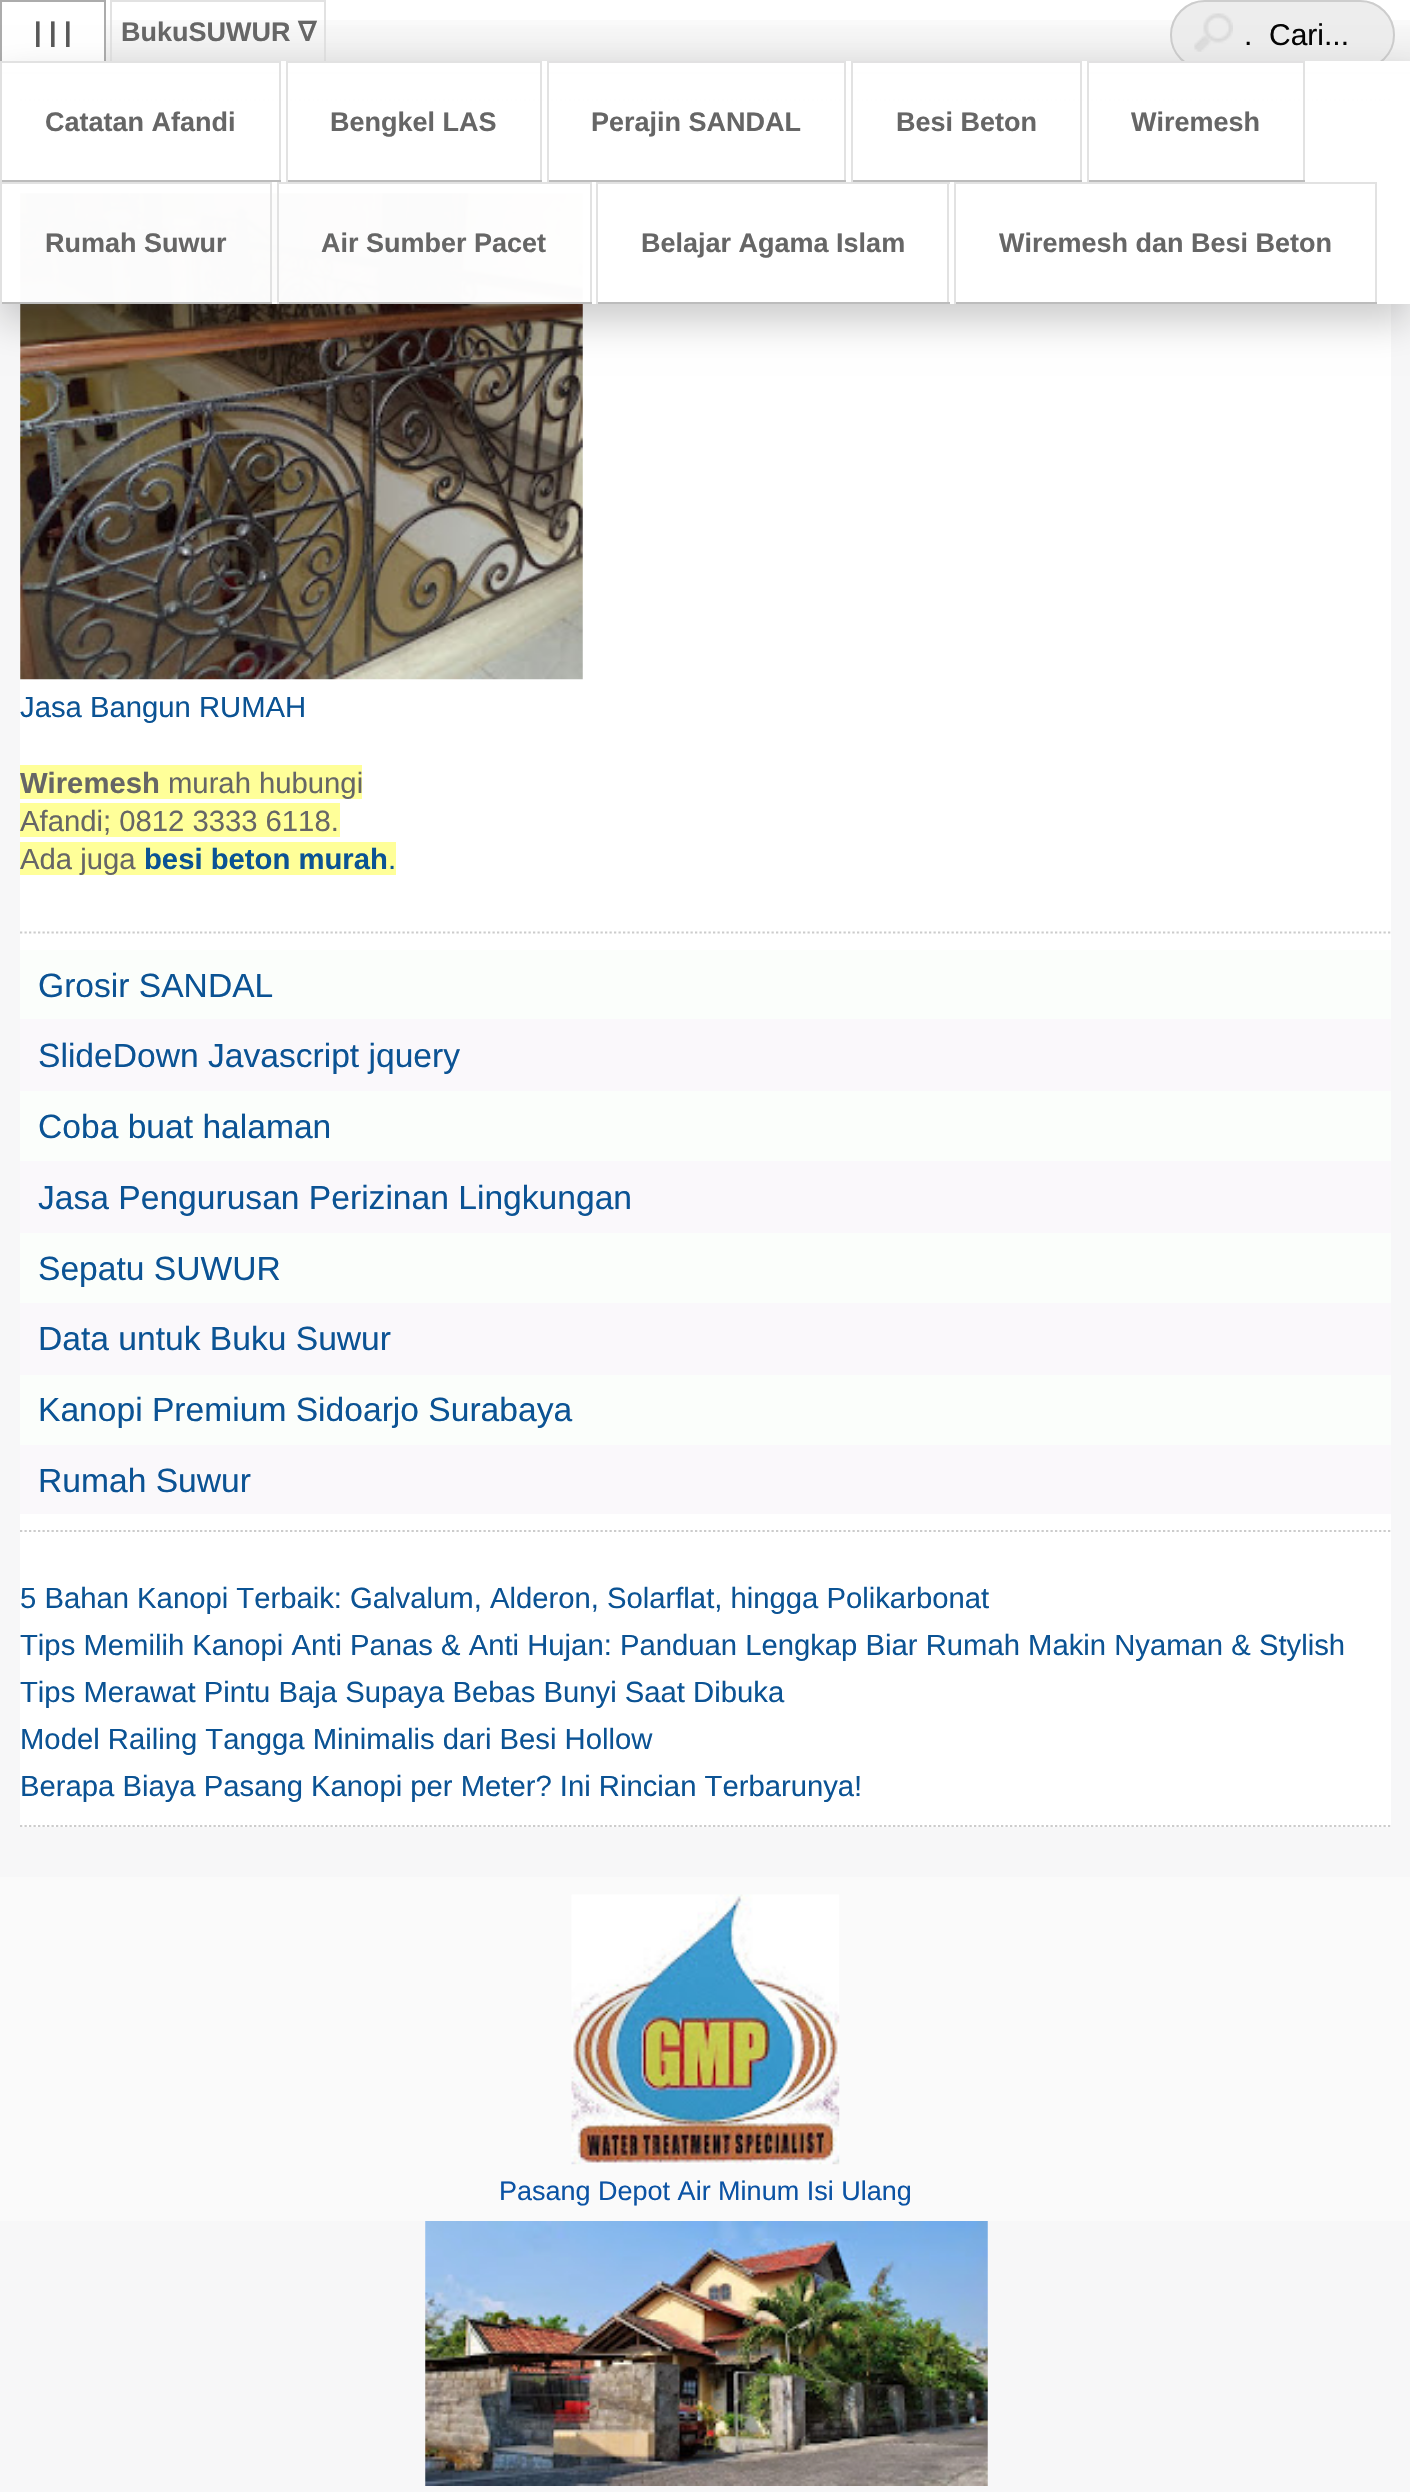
void draw(SkCanvas* c) {
SkPaint p;
p.setAntiAlias(true);
auto F=[&](const char* family, int weight, float size, bool italic = false){SkFontStyle style(weight, SkFontStyle::kNormal_Width,italic ? SkFontStyle::kItalic_Slant : SkFontStyle::kUpright_Slant);SkFont result(fontMgr->matchFamilyStyle(family, style), size);result.setSubpixel(true);return result;};
auto T=[&](const char* s, float x, float y, const SkFont& font){c->drawString(s, x, y, font, p);};
auto R=[&](float x, float y, float w, float h){c->drawRect(SkRect::MakeXYWH(x, y, w, h), p);};
auto Q=[&](float x, float y, float w, float h, float radius){c->drawRoundRect(SkRect::MakeXYWH(x, y, w, h), radius, radius, p);};
auto I=[&](const char* path, float x, float y, float w, float h){auto image = SkImages::DeferredFromEncodedData(SkData::MakeFromFileName(path));c->drawImageRect(image, SkRect::MakeXYWH(x, y, w, h), SkSamplingOptions());};
auto P=[&](const char* data, bool evenOdd = false){SkPath result = *SkParsePath::FromSVGString(data);if (evenOdd) result.setFillType(SkPathFillType::kEvenOdd);return result;};
c->clear(0xfff7f7f8);
p.setColor(0xffffffff);
R(2,0,1408,74);
p.setColor(0xfffaf8fb);
R(20,74,1371,12);
I("1.png",2,20,1408,55);
p.setColor(0xfaffffff);
R(2,20,104,41);
p.setColor(0xffacacac);
R(0,0,106,2);
p.setColor(0xfaaaaaaa);
R(104,0,2,63);
p.setColor(0xffacacac);
R(0,0,2,63);
auto f1 = F("Liberation Sans",700,27);
p.setColor(0xff585858);
T("| | |",34,41,f1);
p.setColor(0xffe2e2e2);
R(110,0,216,2);
p.setColor(0xfae1e1e1);
R(324,0,2,63);
p.setColor(0xfabbbbbb);
R(281,61,5,2);
p.setColor(0xfae1e1e1);
R(110,0,2,63);
p.setColor(0xfaededed);
Q(1170,0,225,70,35);
I("2.png",1194,13,39,39);
p.setStroke(true);
p.setStrokeWidth(2);
p.setColor(0xfacccccc);
c->drawRoundRect(SkRect::MakeXYWH(1171,1,223,68),34,34,p);
p.setStroke(false);
p.setColor(0xffffffff);
R(20,86,1371,1741);
p.setStroke(true);
p.setStrokeWidth(2.2);
p.setColor(0xffcccccc);
p.setPathEffect(SkDashPathEffect::Make({{2.25f,2.25f}}, 0));
c->drawPath(P("M20 100h1370.5"),p);
p.setPathEffect(nullptr);
I("3.png",20,193,563,487);
c->save();
c->clipPath(P("M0 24h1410v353h-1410zm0 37h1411v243h-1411z",true),true);
p.setStroke(false);
p.setColor(0x33000000);
p.setMaskFilter(SkMaskFilter::MakeBlur(kNormal_SkBlurStyle, 18));
c->drawRect(SkRect::MakeXYWH(0,79,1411,243),p);
p.setMaskFilter(nullptr);
c->restore();
p.setColor(0xfaffffff);
R(2,61,1408,243);
p.setColor(0xffe2e2e2);
R(0,61,281,2);
p.setColor(0xfae1e1e1);
R(279,61,2,121);
p.setColor(0xfabbbbbb);
R(0,180,281,2);
p.setColor(0xffe1e1e1);
R(0,61,2,121);
p.setColor(0xff666666);
T("Catatan Afandi",45,131,f1);
p.setColor(0xffe2e2e2);
R(286,61,256,2);
p.setColor(0xfae1e1e1);
R(540,61,2,121);
p.setColor(0xffbcbcbc);
R(286,180,256,2);
p.setColor(0xfae1e1e1);
R(286,61,2,121);
p.setColor(0xff666666);
T("Bengkel LAS",330,131,f1);
p.setColor(0xffe2e1e2);
R(547,61,299,2);
p.setColor(0xfae1e1e1);
R(844,61,2,121);
p.setColor(0xffbcbcbc);
R(547,180,299,2);
p.setColor(0xfae1e1e1);
R(547,61,2,121);
p.setColor(0xff666666);
T("Perajin SANDAL",591,131,f1);
p.setColor(0xffe2e1e2);
R(851,61,231,2);
p.setColor(0xfae1e1e1);
R(1080,61,2,121);
p.setColor(0xffbcbcbc);
R(851,180,231,2);
p.setColor(0xfae1e1e1);
R(851,61,2,121);
p.setColor(0xff666666);
T("Besi Beton",896,131,f1);
p.setColor(0xffe2e1e2);
R(1087,61,218,2);
p.setColor(0xfae1e1e1);
R(1303,61,2,121);
p.setColor(0xffbcbcbc);
R(1087,180,218,2);
p.setColor(0xfae1e1e1);
R(1087,61,2,121);
p.setColor(0xff666666);
T("Wiremesh",1131,131,f1);
p.setColor(0xffe2e2e2);
R(0,182,272,2);
p.setColor(0xfae1e1e1);
R(270,182,2,122);
p.setColor(0xfabbbbbb);
R(0,302,272,2);
p.setColor(0xffe1e1e1);
R(0,182,2,122);
p.setColor(0xff666666);
T("Rumah Suwur",45,252,f1);
p.setColor(0xffe2e2e2);
R(277,182,315,2);
R(590,182,2,122);
p.setColor(0xfabbbbbb);
R(277,302,315,2);
p.setColor(0xfae1e1e1);
R(277,182,2,122);
p.setColor(0xff666666);
T("Air Sumber Pacet",321,252,f1);
p.setColor(0xffe2e2e2);
R(596,182,354,2);
R(947,182,2,122);
p.setColor(0xffbcbcbc);
R(596,302,354,2);
p.setColor(0xffe2e2e2);
R(596,182,2,122);
p.setColor(0xff666666);
T("Belajar Agama Islam",641,252,f1);
p.setColor(0xffe2e2e2);
R(954,182,423,2);
R(1375,182,2,122);
p.setColor(0xffbcbcbc);
R(954,302,423,2);
p.setColor(0xffe2e2e2);
R(954,182,2,122);
p.setColor(0xff666666);
T("Wiremesh dan Besi Beton",999,252,f1);
T("BukuSUWUR",121,41,f1);
auto f2 = F("DejaVu Sans",700,27);
T("∇",298,41,f2);
auto f3 = F("Liberation Sans",400,30);
p.setColor(0xff050505);
T(".  Cari...",1244,45,f3);
p.setStroke(true);
p.setColor(0xffcccccc);
p.setPathEffect(SkDashPathEffect::Make({{2.25f,2.25f}}, 0));
c->drawPath(P("M20 932.5h1370.5"),p);
p.setPathEffect(nullptr);
auto f4 = F("Liberation Sans",400,29.25);
p.setStroke(false);
p.setColor(0xff0b5394);
T("Jasa Bangun RUMAH",20,717,f4);
p.setColor(0xffffff99);
R(20,765,342,34);
auto f5 = F("Liberation Sans",700,29.25);
p.setColor(0xff666666);
T("Wiremesh",20,793,f5);
T("murah hubungi",168,793,f4);
p.setColor(0xffffff99);
R(20,803,320,34);
p.setColor(0xff666666);
T("Afandi; 0812 3333 6118.",20,831,f4);
p.setColor(0xffffff99);
R(20,842,376,33);
p.setColor(0xff666666);
T("Ada juga",20,869,f4);
p.setColor(0xff0b5394);
T("besi beton murah",144,869,f5);
T(".",388,869,f4);
p.setStroke(true);
p.setColor(0xffcccccc);
p.setPathEffect(SkDashPathEffect::Make({{2.25f,2.25f}}, 0));
c->drawPath(P("M20 1531h1370.5"),p);
p.setPathEffect(nullptr);
p.setStroke(false);
p.setColor(0xfffaf8fb);
R(20,1019,1371,495);
p.setColor(0xfffbfefb);
R(20,950,1371,69);
auto f6 = F("Liberation Sans",400,33.6);
p.setColor(0xff0b5394);
T("Grosir SANDAL",38,997,f6);
T("SlideDown Javascript jquery",38,1067,f6);
p.setColor(0xfffbfefb);
R(20,1091,1371,70);
p.setColor(0xff0b5394);
T("Coba buat halaman",38,1138,f6);
T("Jasa Pengurusan Perizinan Lingkungan",38,1209,f6);
p.setColor(0xfffbfefb);
R(20,1233,1371,70);
p.setColor(0xff0b5394);
T("Sepatu SUWUR",38,1280,f6);
T("Data untuk Buku Suwur",38,1350,f6);
p.setColor(0xfffbfefb);
R(20,1375,1371,70);
p.setColor(0xff0b5394);
T("Kanopi Premium Sidoarjo Surabaya",38,1421,f6);
T("Rumah Suwur",38,1492,f6);
p.setStroke(true);
p.setColor(0xffcccccc);
p.setPathEffect(SkDashPathEffect::Make({{2.25f,2.25f}}, 0));
c->drawPath(P("M20 1826h1370.5"),p);
p.setPathEffect(nullptr);
p.setStroke(false);
p.setColor(0xff0b5394);
T("5 Bahan Kanopi Terbaik: Galvalum, Alderon, Solarflat, hingga Polikarbonat",20,1608,f4);
T("Tips Memilih Kanopi Anti Panas & Anti Hujan: Panduan Lengkap Biar Rumah Makin Nyaman & Stylish",20,1655,f4);
T("Tips Merawat Pintu Baja Supaya Bebas Bunyi Saat Dibuka",20,1702,f4);
T("Model Railing Tangga Minimalis dari Besi Hollow",20,1749,f4);
T("Berapa Biaya Pasang Kanopi per Meter? Ini Rincian Terbarunya!",20,1796,f4);
p.setColor(0xfffafafa);
R(0,1877,1410,344);
I("4.png",571,1894,269,271);
auto f7 = F("Liberation Sans",400,27);
p.setColor(0xff0b53a4);
T("Pasang Depot Air Minum Isi Ulang",499,2200,f7);
I("5.png",425,2221,563,265);
}
